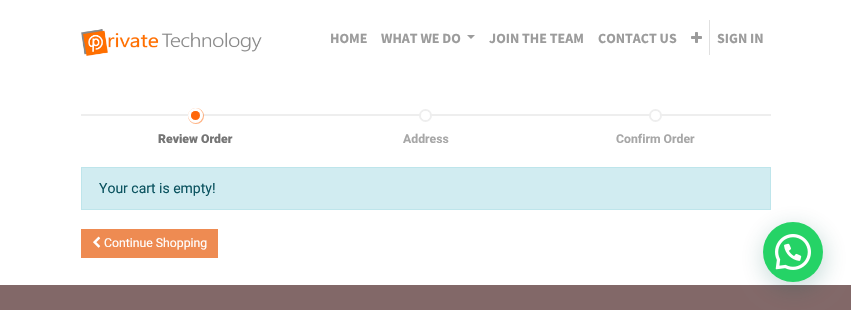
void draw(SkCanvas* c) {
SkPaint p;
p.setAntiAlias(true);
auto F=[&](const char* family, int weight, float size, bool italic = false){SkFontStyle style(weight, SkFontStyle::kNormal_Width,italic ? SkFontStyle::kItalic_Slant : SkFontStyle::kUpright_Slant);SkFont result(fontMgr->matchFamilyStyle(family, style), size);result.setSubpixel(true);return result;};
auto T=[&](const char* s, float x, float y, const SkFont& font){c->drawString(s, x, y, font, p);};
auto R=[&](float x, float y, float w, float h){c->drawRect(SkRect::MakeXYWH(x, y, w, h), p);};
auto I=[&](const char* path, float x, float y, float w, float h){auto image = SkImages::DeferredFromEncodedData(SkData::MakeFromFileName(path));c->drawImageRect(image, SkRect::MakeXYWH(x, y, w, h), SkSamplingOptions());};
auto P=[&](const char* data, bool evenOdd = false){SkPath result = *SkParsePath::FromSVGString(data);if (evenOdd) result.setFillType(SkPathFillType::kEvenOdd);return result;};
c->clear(0xffffffff);
I("1.png",81,29,181,27);
auto f1 = F("Source Sans Pro",700,14);
p.setColor(0xff9c9c9c);
T("HOME",330,43,f1);
T("WHAT WE DO",381,43,f1);
c->drawPath(P("M467 35h8l-4 4z"),p);
T("JOIN THE TEAM",489,43,f1);
T("CONTACT US",598,43,f1);
I("2.png",691,32,11,11);
p.setColor(0xffe0e0e0);
R(709,20,1,35);
p.setColor(0xff9c9c9c);
T("SIGN IN",717,43,f1);
p.setColor(0xffeeeeee);
R(81,114,690,2);
p.setStroke(true);
p.setStrokeWidth(4);
p.setColor(0x80ff6709);
c->drawCircle(196,116,6,p);
p.setStrokeWidth(3);
p.setColor(0xffffffff);
c->drawCircle(195.5,115.5,6,p);
p.setStroke(false);
p.setColor(0xffff6709);
c->drawCircle(195.5,115.5,4.5,p);
auto f2 = F("Roboto",900,12.25);
p.setColor(0xff757575);
T("Review Order",158,143,f2);
p.setStroke(true);
p.setStrokeWidth(2);
p.setColor(0xffeeeeee);
c->drawCircle(425.5,115.5,5.5,p);
p.setStroke(false);
p.setColor(0xffffffff);
c->drawCircle(425.5,115.5,4.5,p);
auto f3 = F("Roboto",700,12.25);
p.setColor(0xffa7a7a7);
T("Address",403,143,f3);
p.setStroke(true);
p.setColor(0xffeeeeee);
c->drawCircle(655.5,115.5,5.5,p);
p.setStroke(false);
p.setColor(0xffffffff);
c->drawCircle(655.5,115.5,4.5,p);
p.setColor(0xffa7a7a7);
T("Confirm Order",616,143,f3);
p.setColor(0xffd1ecf1);
c->drawRect(SkRect::MakeXYWH(81.5,167.5,689,42),p);
p.setStroke(true);
p.setStrokeWidth(1);
p.setColor(0xffbee5eb);
c->drawRect(SkRect::MakeXYWH(81.5,167.5,689,42),p);
auto f4 = F("Roboto",400,14);
p.setStroke(false);
p.setColor(0xff0c5460);
T("Your cart is empty!",99,193,f4);
p.setColor(0xffee8b52);
R(81,229,137,29);
I("3.png",93,236,8,12);
auto f5 = F("Roboto",400,12.25);
p.setColor(0xffffffff);
T("Continue Shopping",104,247,f5);
p.setColor(0xff826868);
R(0,285,851,25);
p.setColor(0x3d075e54);
p.setMaskFilter(SkMaskFilter::MakeBlur(kNormal_SkBlurStyle, 12));
c->drawRoundRect(SkRect::MakeXYWH(764,228,60,60),30,30,p);
p.setMaskFilter(nullptr);
p.setColor(0xff25d366);
c->drawCircle(793,252,30,p);
I("4.png",775,234,36,36);
}
